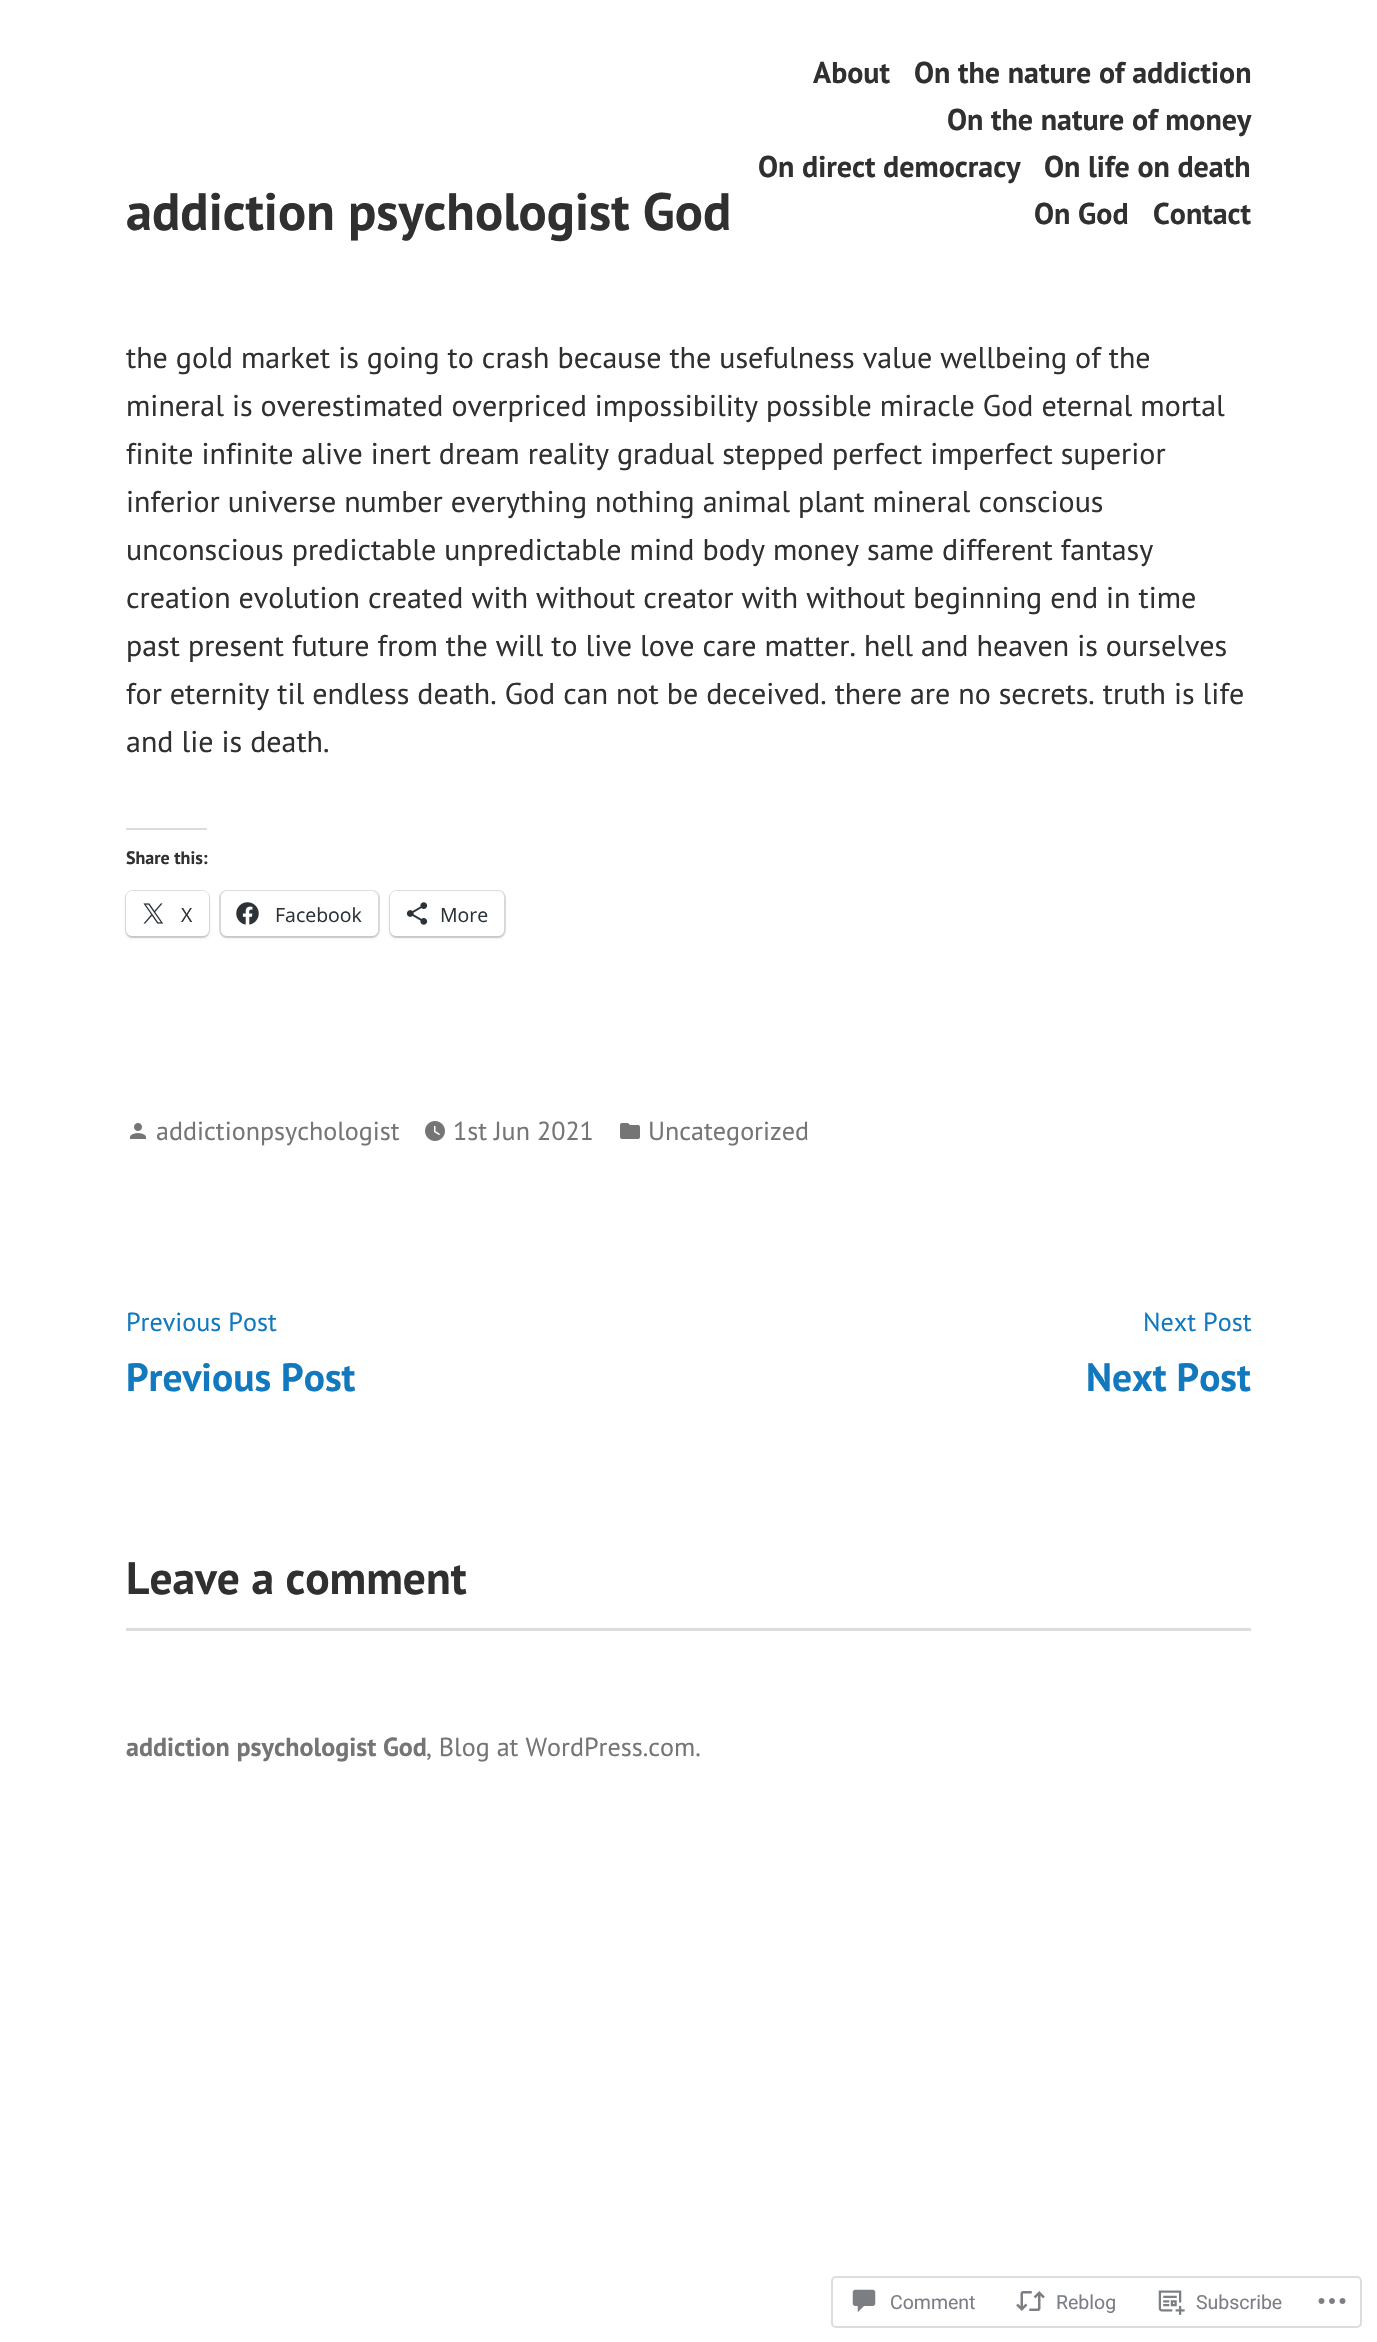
void draw(SkCanvas* c) {
SkPaint p;
p.setAntiAlias(true);
auto F=[&](const char* family, int weight, float size, bool italic = false){SkFontStyle style(weight, SkFontStyle::kNormal_Width,italic ? SkFontStyle::kItalic_Slant : SkFontStyle::kUpright_Slant);SkFont result(fontMgr->matchFamilyStyle(family, style), size);result.setSubpixel(true);return result;};
auto T=[&](const char* s, float x, float y, const SkFont& font){c->drawString(s, x, y, font, p);};
auto R=[&](float x, float y, float w, float h){c->drawRect(SkRect::MakeXYWH(x, y, w, h), p);};
auto Q=[&](float x, float y, float w, float h, float radius){c->drawRoundRect(SkRect::MakeXYWH(x, y, w, h), radius, radius, p);};
auto I=[&](const char* path, float x, float y, float w, float h){auto image = SkImages::DeferredFromEncodedData(SkData::MakeFromFileName(path));c->drawImageRect(image, SkRect::MakeXYWH(x, y, w, h), SkSamplingOptions());};
c->clear(0xffffffff);
auto f1 = F("PT Sans",700,52.5);
p.setColor(0xff303030);
T("addiction psychologist God",126,230,f1);
auto f2 = F("PT Sans",700,30);
T("About",813,83,f2);
T("On the nature of addiction",914,83,f2);
T("On the nature of money",947,130,f2);
T("On direct democracy",758,177,f2);
T("On life on death",1044,177,f2);
T("On God",1034,224,f2);
T("Contact",1153,224,f2);
auto f3 = F("PT Sans",400,30);
T("the gold market is going to crash because the usefulness value wellbeing of the",126,368,f3);
T("mineral is overestimated overpriced impossibility possible miracle God eternal mortal",126,416,f3);
T("finite infinite alive inert dream reality gradual stepped perfect imperfect superior",126,464,f3);
T("inferior universe number everything nothing animal plant mineral conscious",126,512,f3);
T("unconscious predictable unpredictable mind body money same different fantasy",126,560,f3);
T("creation evolution created with without creator with without beginning end in time",126,608,f3);
T("past present future from the will to live love care matter. hell and heaven is ourselves",126,656,f3);
T("for eternity til endless death. God can not be deceived. there are no secrets. truth is life",126,704,f3);
T("and lie is death.",126,752,f3);
p.setColor(0xffdcdcde);
R(126,828,81,2);
auto f4 = F("PT Sans",700,18);
p.setColor(0xff303030);
T("Share this:",126,864,f4);
p.setStroke(true);
p.setStrokeWidth(2);
p.setColor(0xffe0e0e0);
c->drawRoundRect(SkRect::MakeXYWH(126,891,83,46),7,7,p);
p.setStroke(false);
p.setColor(0x1f000000);
p.setMaskFilter(SkMaskFilter::MakeBlur(kNormal_SkBlurStyle, 1.5));
c->drawRoundRect(SkRect::MakeXYWH(126,893,83,45),6,6,p);
p.setMaskFilter(nullptr);
p.setColor(0xffffffff);
Q(126,891,83,45,6);
I("1.png",143,903,21,21);
auto f5 = F("Open Sans",400,19.5);
p.setColor(0xff2c3338);
T("X",181,922,f5);
p.setStroke(true);
p.setColor(0xffe0e0e0);
c->drawRoundRect(SkRect::MakeXYWH(220,891,159,46),7,7,p);
p.setStroke(false);
p.setColor(0x1f000000);
p.setMaskFilter(SkMaskFilter::MakeBlur(kNormal_SkBlurStyle, 1.5));
c->drawRoundRect(SkRect::MakeXYWH(221,893,157,45),6,6,p);
p.setMaskFilter(nullptr);
p.setColor(0xffffffff);
Q(221,891,157,45,6);
I("2.png",236,902,23,23);
p.setColor(0xff2c3338);
T("Facebook",275,922,f5);
p.setStroke(true);
p.setColor(0xffe0e0e0);
c->drawRoundRect(SkRect::MakeXYWH(390,891,115,46),7,7,p);
p.setStroke(false);
p.setColor(0x1f000000);
p.setMaskFilter(SkMaskFilter::MakeBlur(kNormal_SkBlurStyle, 1.5));
c->drawRoundRect(SkRect::MakeXYWH(390,893,114,45),6,6,p);
p.setMaskFilter(nullptr);
p.setColor(0xffffffff);
Q(390,891,114,45,6);
I("3.png",406,902,22,23);
p.setColor(0xff2c3338);
T("More",440,922,f5);
I("4.png",130,1123,16,16);
auto f6 = F("PT Sans",400,26.1);
p.setColor(0xff757575);
T("addictionpsychologist",156,1140,f6);
I("5.png",425,1121,20,20);
T("1st Jun 2021",453,1140,f6);
I("6.png",620,1123,20,16);
T("Uncategorized",648,1140,f6);
p.setColor(0xff1279be);
T("Previous Post",126,1331,f6);
auto f7 = F("PT Sans",700,39.5);
T("Previous Post",126,1391,f7);
T("Next Post",1143,1331,f6);
T("Next Post",1086,1391,f7);
auto f8 = F("PT Sans",700,45.5);
p.setColor(0xff303030);
T("Leave a comment",126,1594,f8);
p.setColor(0xffdcdcde);
R(126,1628,1125,3);
auto f9 = F("PT Sans",700,26.1);
p.setColor(0xff757575);
T("addiction psychologist God",126,1756,f9);
T(", Blog at WordPress.com.",426,1756,f6);
p.setStroke(true);
p.setColor(0xffdddddf);
c->drawRoundRect(SkRect::MakeXYWH(832,2277,529,50),4,4,p);
I("7.png",852,2289,24,24);
auto f10 = F("Roboto",400,19.5);
p.setStroke(false);
p.setColor(0xff7b7f85);
T("Comment",890,2309,f10);
I("8.png",1016,2291,29,20);
T("Reblog",1056,2309,f10);
I("9.png",1158,2290,27,25);
T("Subscribe",1196,2309,f10);
I("10.png",1318,2298,28,6);
}
